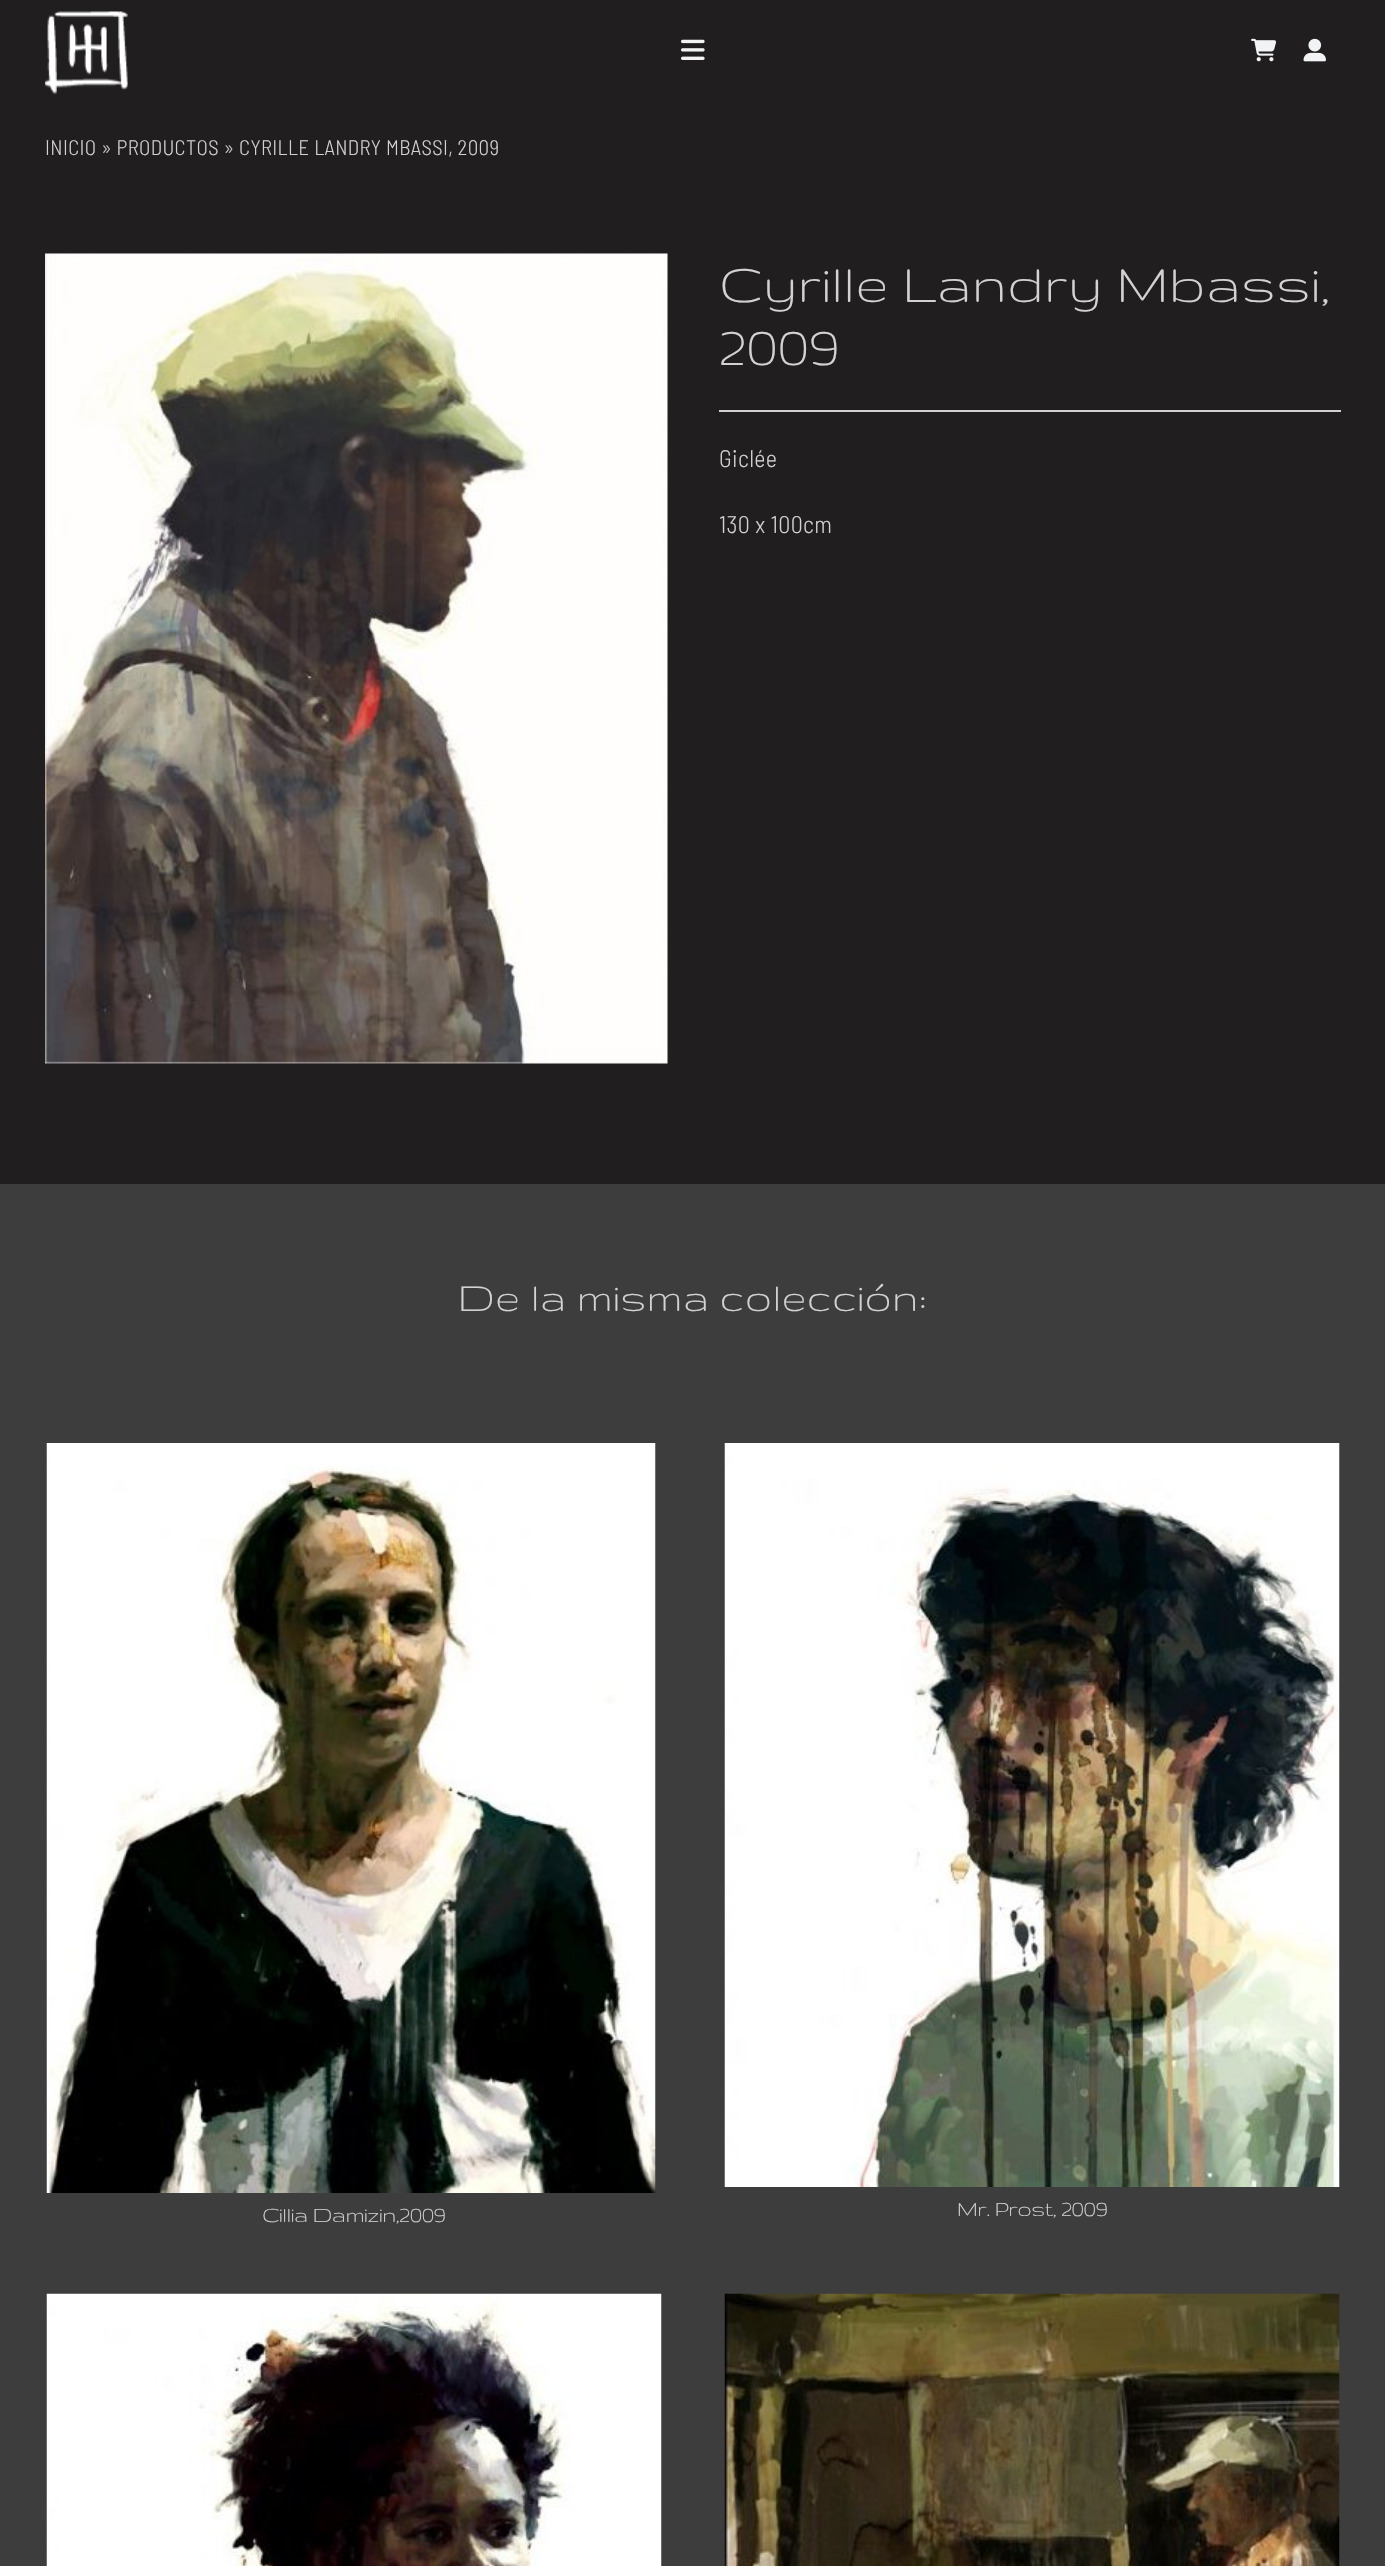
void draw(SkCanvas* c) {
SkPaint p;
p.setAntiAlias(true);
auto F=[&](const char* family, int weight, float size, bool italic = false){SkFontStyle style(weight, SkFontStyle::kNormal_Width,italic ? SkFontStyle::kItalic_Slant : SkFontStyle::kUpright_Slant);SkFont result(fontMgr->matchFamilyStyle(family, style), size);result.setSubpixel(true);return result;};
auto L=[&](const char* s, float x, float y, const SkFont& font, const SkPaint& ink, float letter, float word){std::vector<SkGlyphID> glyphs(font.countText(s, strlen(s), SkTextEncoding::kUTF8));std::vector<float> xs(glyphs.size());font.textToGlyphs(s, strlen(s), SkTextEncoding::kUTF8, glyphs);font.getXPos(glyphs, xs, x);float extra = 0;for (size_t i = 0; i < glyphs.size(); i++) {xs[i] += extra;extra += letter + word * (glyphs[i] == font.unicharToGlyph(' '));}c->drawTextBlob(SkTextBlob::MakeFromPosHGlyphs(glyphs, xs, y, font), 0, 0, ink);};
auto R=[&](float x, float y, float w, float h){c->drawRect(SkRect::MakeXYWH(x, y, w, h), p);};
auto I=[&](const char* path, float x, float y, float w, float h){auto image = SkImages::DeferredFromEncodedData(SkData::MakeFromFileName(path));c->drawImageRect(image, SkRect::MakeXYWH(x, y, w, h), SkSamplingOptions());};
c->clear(0xff211e1f);
I("1.png",45,11,83,84);
I("2.png",681,39,24,21);
I("3.png",1251,38,26,24);
I("4.png",1303,38,23,24);
auto f1 = F("Barlow Semi Condensed",300,21);
p.setColor(0xffd3d2d2);
L("INICIO » PRODUCTOS » CYRILLE LANDRY MBASSI, 2009",45,155,f1,p,.35,0);
I("5.png",45,253,623,811);
auto f2 = F("Gruppo",400,60);
L("Cyrille Landry Mbassi,",719,302,f2,p,.35,0);
L("2009",719,365,f2,p,.35,0);
R(719,410,622,2);
auto f3 = F("Barlow Semi Condensed",300,24);
L("Giclée",719,467,f3,p,.35,0);
L("130 x 100cm",719,533,f3,p,.35,0);
p.setColor(0xff3d3d3d);
R(0,1184,1385,1382);
auto f4 = F("Gruppo",400,45);
p.setColor(0xffd3d2d2);
L("De la misma colección:",458,1311,f4,p,.35,0);
I("6.png",46,1443,610,750);
auto f5 = F("Gruppo",400,24);
L("Cillia Damizin,2009",262,2222,f5,p,-.4,0);
I("7.png",724,1443,616,744);
L("Mr. Prost, 2009",957,2216,f5,p,-.4,0);
I("8.png",46,2293,616,273);
I("9.png",724,2293,616,273);
}
